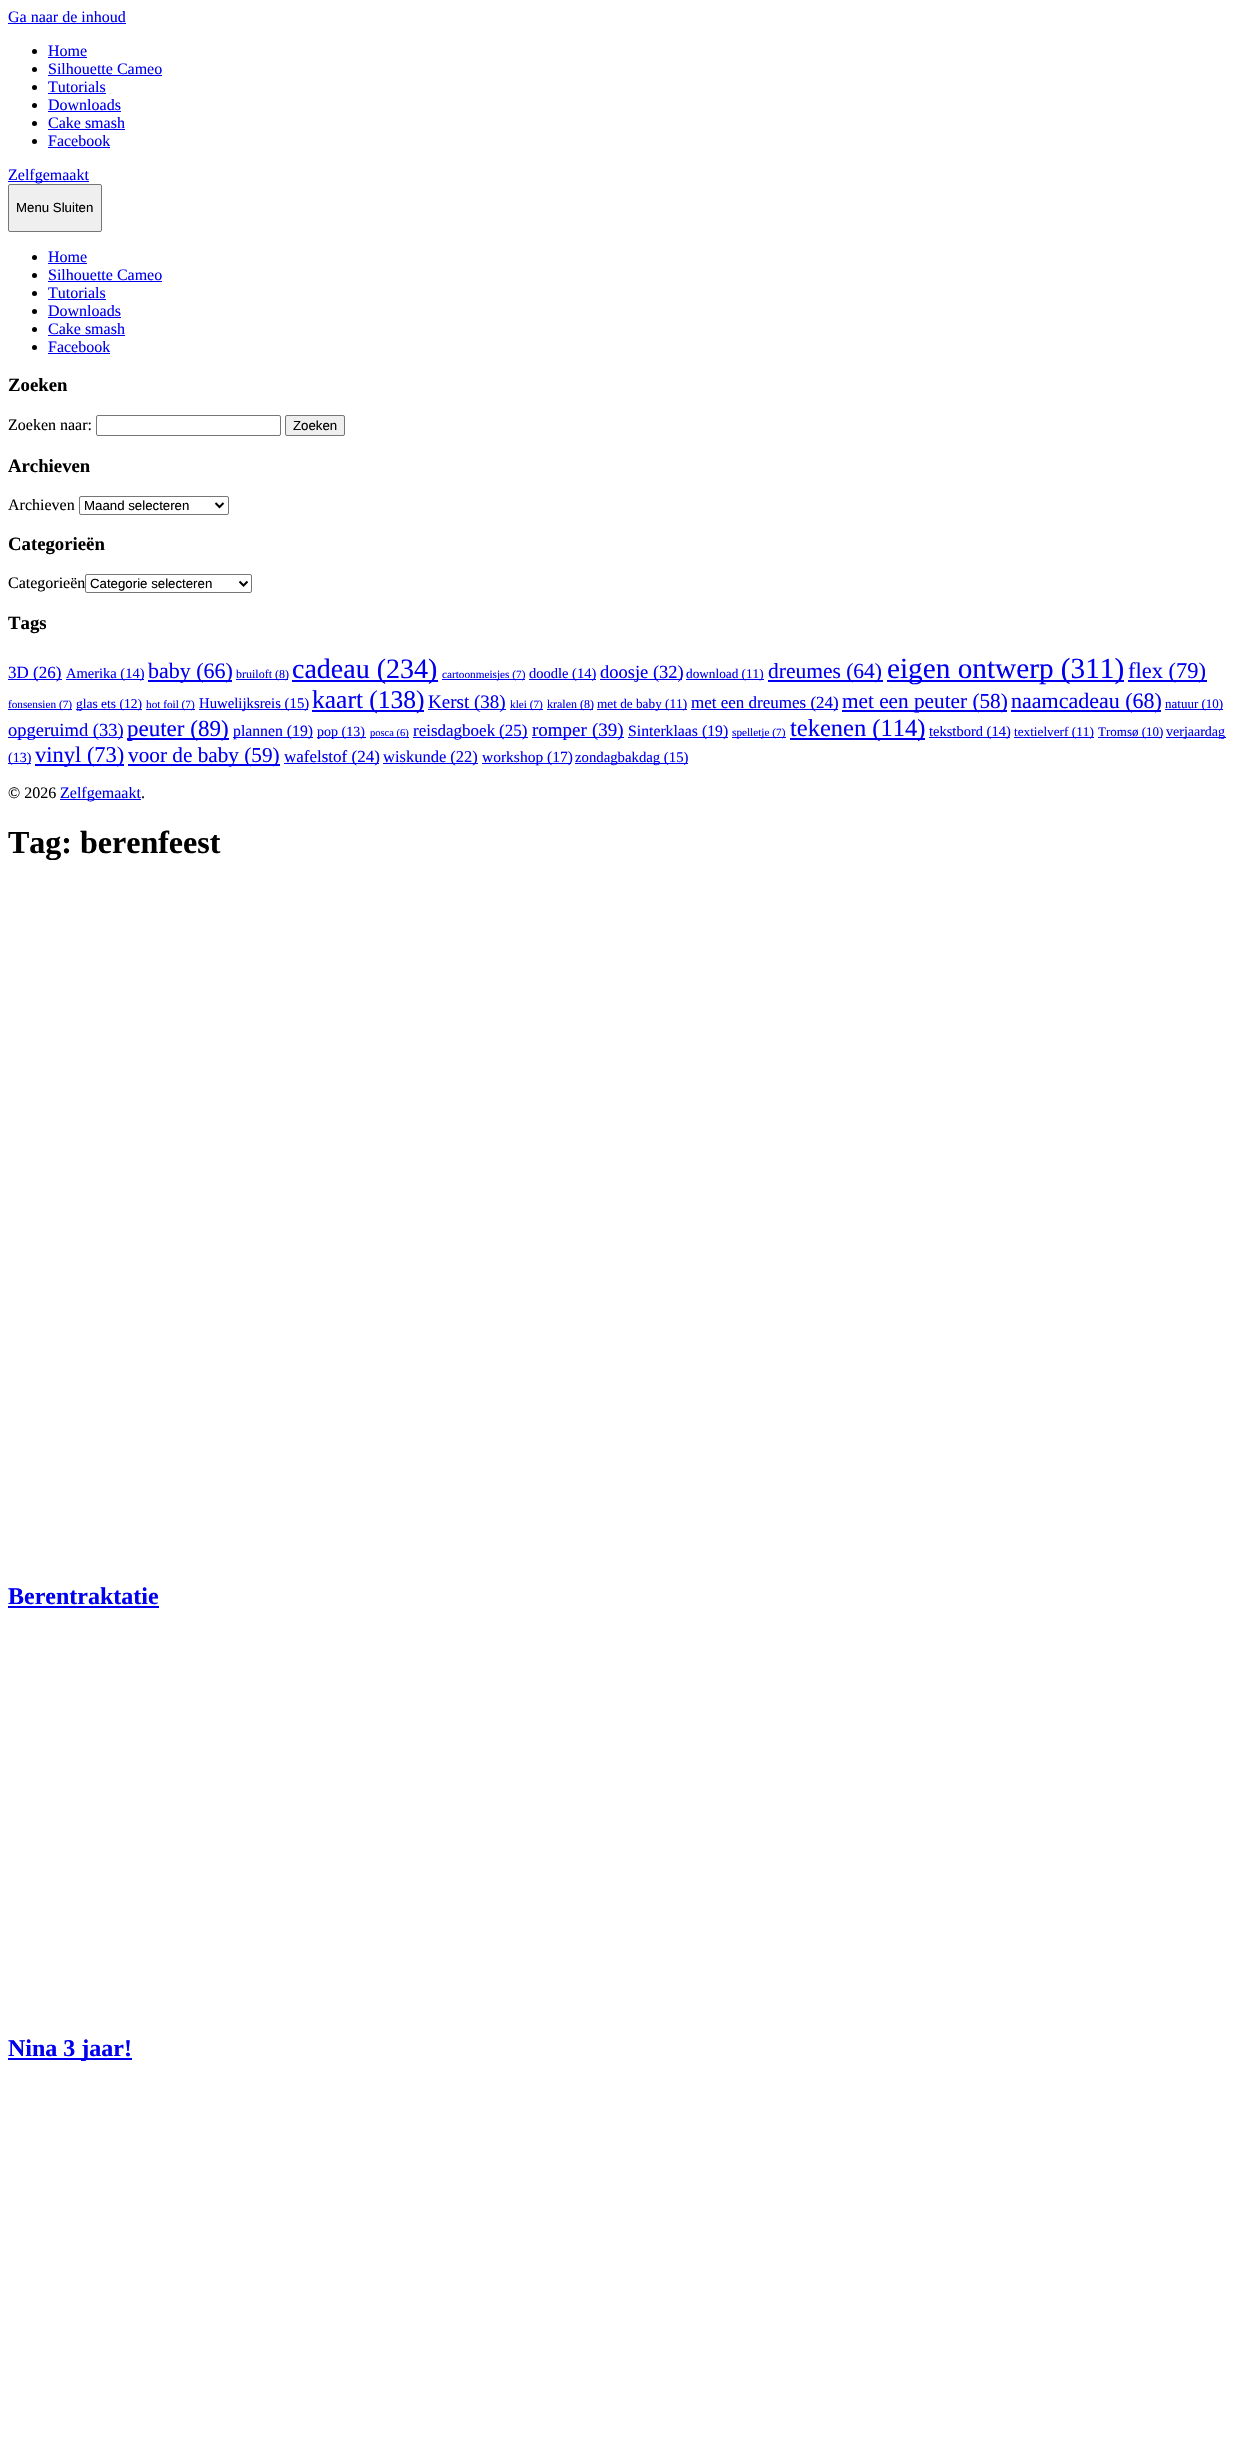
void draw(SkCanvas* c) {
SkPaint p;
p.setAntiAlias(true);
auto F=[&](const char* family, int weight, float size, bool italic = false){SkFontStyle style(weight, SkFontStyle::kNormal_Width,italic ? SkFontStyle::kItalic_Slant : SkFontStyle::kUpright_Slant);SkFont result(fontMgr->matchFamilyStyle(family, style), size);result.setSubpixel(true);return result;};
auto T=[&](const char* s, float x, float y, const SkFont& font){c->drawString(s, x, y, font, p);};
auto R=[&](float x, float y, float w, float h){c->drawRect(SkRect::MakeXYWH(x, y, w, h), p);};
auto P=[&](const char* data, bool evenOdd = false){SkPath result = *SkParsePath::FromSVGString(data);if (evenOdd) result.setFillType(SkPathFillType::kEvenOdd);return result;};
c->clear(0xffffffff);
auto f1 = F("Liberation Serif",400,16);
p.setColor(0xff0000ee);
T("Ga naar de inhoud",8,22,f1);
R(8,23,118,1);
p.setColor(0xff000000);
c->drawCircle(34.5,51.5,2.5,p);
p.setColor(0xff0000ee);
T("Home",48,56,f1);
R(48,57,39,1);
p.setColor(0xff000000);
c->drawCircle(34.5,69.5,2.5,p);
p.setColor(0xff0000ee);
T("Silhouette Cameo",48,74,f1);
R(48,75,114,1);
p.setColor(0xff000000);
c->drawCircle(34.5,87.5,2.5,p);
p.setColor(0xff0000ee);
T("Tutorials",48,92,f1);
R(48,93,58,1);
p.setColor(0xff000000);
c->drawCircle(34.5,105.5,2.5,p);
p.setColor(0xff0000ee);
T("Downloads",48,110,f1);
R(48,111,73,1);
p.setColor(0xff000000);
c->drawCircle(34.5,123.5,2.5,p);
p.setColor(0xff0000ee);
T("Cake smash",48,128,f1);
R(48,129,77,1);
p.setColor(0xff000000);
c->drawCircle(34.5,141.5,2.5,p);
p.setColor(0xff0000ee);
T("Facebook",48,146,f1);
R(48,147,62,1);
R(8,181,81,1);
T("Zelfgemaakt",8,180,f1);
p.setColor(0xffefefef);
c->drawRoundRect(SkRect::MakeXYWH(8.5,184.5,93,47),1.5,1.5,p);
p.setStroke(true);
p.setStrokeWidth(1);
p.setColor(0xff767676);
c->drawRoundRect(SkRect::MakeXYWH(8.5,184.5,93,47),1.5,1.5,p);
auto f2 = F("Liberation Sans",400,13.25);
p.setStroke(false);
p.setColor(0xff000000);
T("Menu Sluiten",16,212,f2);
c->drawCircle(34.5,257.5,2.5,p);
p.setColor(0xff0000ee);
T("Home",48,262,f1);
R(48,263,39,1);
p.setColor(0xff000000);
c->drawCircle(34.5,275.5,2.5,p);
p.setColor(0xff0000ee);
T("Silhouette Cameo",48,280,f1);
R(48,281,114,1);
p.setColor(0xff000000);
c->drawCircle(34.5,293.5,2.5,p);
p.setColor(0xff0000ee);
T("Tutorials",48,298,f1);
R(48,299,58,1);
p.setColor(0xff000000);
c->drawCircle(34.5,311.5,2.5,p);
p.setColor(0xff0000ee);
T("Downloads",48,316,f1);
R(48,317,73,1);
p.setColor(0xff000000);
c->drawCircle(34.5,329.5,2.5,p);
p.setColor(0xff0000ee);
T("Cake smash",48,334,f1);
R(48,335,77,1);
p.setColor(0xff000000);
c->drawCircle(34.5,347.5,2.5,p);
p.setColor(0xff0000ee);
T("Facebook",48,352,f1);
R(48,353,62,1);
auto f3 = F("Liberation Serif",700,18.75);
p.setColor(0xff000000);
T("Zoeken",8,391,f3);
T("Zoeken naar:",8,430,f1);
p.setStroke(true);
p.setColor(0xff767676);
c->drawRoundRect(SkRect::MakeXYWH(96.5,415.5,184,20),1.5,1.5,p);
p.setStroke(false);
p.setColor(0xffefefef);
c->drawRoundRect(SkRect::MakeXYWH(285.5,415.5,59,20),1.5,1.5,p);
p.setStroke(true);
p.setColor(0xff767676);
c->drawRoundRect(SkRect::MakeXYWH(285.5,415.5,59,20),1.5,1.5,p);
p.setStroke(false);
p.setColor(0xff000000);
T("Zoeken",293,430,f2);
T("Archieven",8,472,f3);
T("Archieven",8,510,f1);
p.setStroke(true);
p.setColor(0xff767676);
c->drawRoundRect(SkRect::MakeXYWH(79.5,496.5,149,18),1.5,1.5,p);
p.setStrokeWidth(2);
p.setColor(0xff000000);
c->drawPath(P("M215.5 503l4 4l4-4"),p);
p.setStroke(false);
T("Maand selecteren",84,510,f2);
T("Categorieën",8,550,f3);
T("Categorieën",8,588,f1);
p.setColor(0xffffffff);
c->drawRoundRect(SkRect::MakeXYWH(85.5,574.5,166,18),1.5,1.5,p);
p.setStroke(true);
p.setStrokeWidth(1);
p.setColor(0xff767676);
c->drawRoundRect(SkRect::MakeXYWH(85.5,574.5,166,18),1.5,1.5,p);
p.setStrokeWidth(2);
p.setColor(0xff000000);
c->drawPath(P("M239.5 581.5l4 4l4-4"),p);
p.setStroke(false);
T("Categorie selecteren",90,588,f2);
T("Tags",8,629,f3);
p.setColor(0xff0000ee);
R(8,679,54,1);
auto f4 = F("Liberation Serif",400,17);
T("3D (26)",8,678,f4);
R(66,679,78,1);
auto f5 = F("Liberation Serif",400,14.5);
T("Amerika (14)",66,678,f5);
R(148,680,84,2);
auto f6 = F("Liberation Serif",400,22);
T("baby (66)",148,678,f6);
R(236,679,52,1);
auto f7 = F("Liberation Serif",400,12);
T("bruiloft (8)",236,678,f7);
R(292,680,146,2);
auto f8 = F("Liberation Serif",400,28);
T("cadeau (234)",292,678,f8);
R(442,679,83,1);
auto f9 = F("Liberation Serif",400,11.25);
T("cartoonmeisjes (7)",442,678,f9);
R(529,679,67,1);
T("doodle (14)",529,678,f5);
R(600,679,82,1);
auto f10 = F("Liberation Serif",400,18.5);
T("doosje (32)",600,678,f10);
R(686,679,78,1);
auto f11 = F("Liberation Serif",400,13.25);
T("download (11)",686,678,f11);
R(768,680,115,2);
auto f12 = F("Liberation Serif",400,21.5);
T("dreumes (64)",768,678,f12);
R(887,680,237,2);
auto f13 = F("Liberation Serif",400,29.25);
T("eigen ontwerp (311)",887,678,f13);
R(1128,680,79,2);
auto f14 = F("Liberation Serif",400,22.5);
T("flex (79)",1128,678,f14);
R(8,709,64,1);
T("fonsensien (7)",8,708,f9);
R(76,709,66,1);
auto f15 = F("Liberation Serif",400,13.5);
T("glas ets (12)",76,708,f15);
R(146,709,49,1);
T("hot foil (7)",146,708,f9);
R(199,709,109,1);
auto f16 = F("Liberation Serif",400,14.75);
T("Huwelijksreis (15)",199,708,f16);
R(312,710,112,2);
auto f17 = F("Liberation Serif",400,25.5);
T("kaart (138)",312,708,f17);
R(428,709,78,1);
auto f18 = F("Liberation Serif",400,19);
T("Kerst (38)",428,708,f18);
R(510,709,33,1);
T("klei (7)",510,708,f9);
R(547,709,46,1);
T("kralen (8)",547,708,f7);
R(597,709,90,1);
T("met de baby (11)",597,708,f11);
R(691,709,147,1);
T("met een dreumes (24)",691,708,f4);
R(842,710,165,2);
auto f19 = F("Liberation Serif",400,21.25);
T("met een peuter (58)",842,708,f19);
R(1011,710,150,2);
T("naamcadeau (68)",1011,708,f6);
R(1165,709,58,1);
auto f20 = F("Liberation Serif",400,13);
T("natuur (10)",1165,708,f20);
R(8,737,115,1);
T("opgeruimd (33)",8,736,f10);
R(127,738,102,2);
auto f21 = F("Liberation Serif",400,23);
T("peuter (89)",127,736,f21);
R(233,737,80,1);
auto f22 = F("Liberation Serif",400,15.75);
T("plannen (19)",233,736,f22);
R(317,737,49,1);
auto f23 = F("Liberation Serif",400,14);
T("pop (13)",317,736,f23);
R(370,737,39,1);
auto f24 = F("Liberation Serif",400,10.5);
T("posca (6)",370,736,f24);
R(413,737,82,1);
T("reisdagboek",413,736,f4);
R(495,737,33,1);
T("(25)",499,736,f4);
R(532,737,55,1);
T("romper",532,736,f18);
R(587,737,37,1);
T("(39)",592,736,f18);
R(628,737,100,1);
T("Sinterklaas (19)",628,736,f22);
R(732,737,54,1);
T("spelletje (7)",732,736,f9);
R(790,738,135,2);
auto f25 = F("Liberation Serif",400,24.5);
T("tekenen (114)",790,736,f25);
R(929,737,81,1);
T("tekstbord (14)",929,736,f5);
R(1014,737,80,1);
T("textielverf (11)",1014,736,f11);
R(1098,737,64,1);
T("Tromsø (10)",1098,736,f20);
R(1166,737,60,1);
T("verjaardag",1166,736,f23);
R(8,763,23,1);
T("(13)",8,762,f23);
R(35,764,89,2);
T("vinyl (73)",35,762,f14);
R(128,764,152,2);
T("voor de baby (59)",128,762,f19);
R(284,763,95,1);
T("wafelstof (24)",284,762,f4);
R(383,763,95,1);
auto f26 = F("Liberation Serif",400,16.5);
T("wiskunde (22)",383,762,f26);
R(482,763,89,1);
auto f27 = F("Liberation Serif",400,15.5);
T("workshop (17)",482,762,f27);
R(575,763,113,1);
T("zondagbakdag (15)",575,762,f16);
p.setColor(0xff000000);
T("© 2026",8,798,f1);
p.setColor(0xff0000ee);
R(60,799,81,1);
T("Zelfgemaakt",60,798,f1);
p.setColor(0xff000000);
T(".",141,798,f1);
auto f28 = F("Liberation Serif",700,32);
T("Tag: berenfeest",8,853,f28);
auto f29 = F("Liberation Serif",700,24);
p.setColor(0xff0000ee);
T("Berentraktatie",8,1604,f29);
R(8,1606,151,2);
R(8,2058,124,2);
T("Nina 3 jaar!",8,2056,f29);
}
